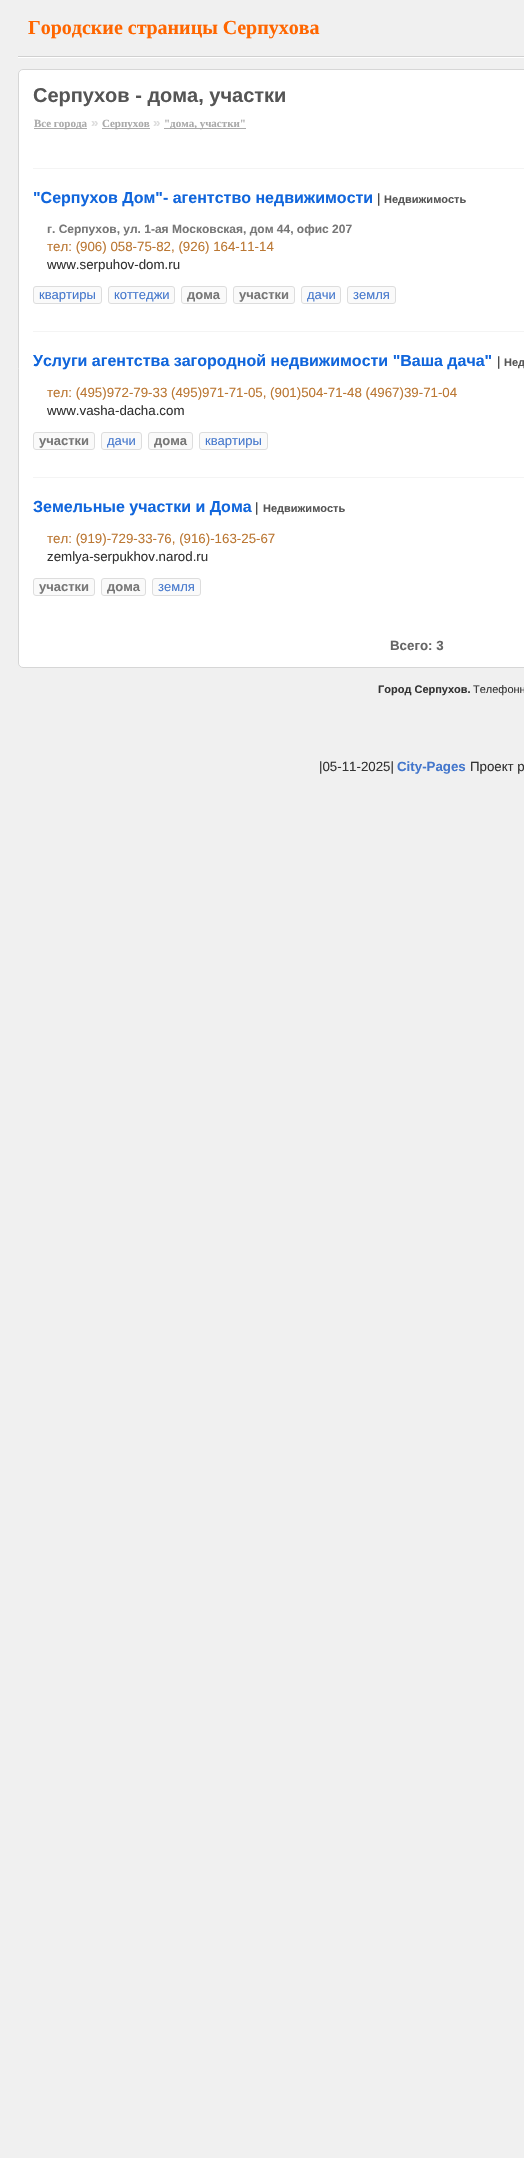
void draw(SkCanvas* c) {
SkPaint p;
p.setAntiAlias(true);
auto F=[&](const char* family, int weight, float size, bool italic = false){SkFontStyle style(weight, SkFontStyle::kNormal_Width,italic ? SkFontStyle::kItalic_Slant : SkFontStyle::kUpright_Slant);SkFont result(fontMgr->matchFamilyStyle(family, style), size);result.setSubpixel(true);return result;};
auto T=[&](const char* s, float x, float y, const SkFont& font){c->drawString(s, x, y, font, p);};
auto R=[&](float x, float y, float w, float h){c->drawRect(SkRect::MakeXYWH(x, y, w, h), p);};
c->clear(0xfff0f0f0);
auto f1 = F("Liberation Serif",700,20);
p.setColor(0xffff6600);
T("Городские страницы Серпухова",28,34,f1);
p.setColor(0xffd0d0d0);
R(18,56,506,1);
p.setColor(0xffffffff);
R(18,57,506,1);
c->drawRoundRect(SkRect::MakeXYWH(18.5,69.5,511,598),4.5,4.5,p);
p.setStroke(true);
p.setStrokeWidth(1);
p.setColor(0xffd6d6d6);
c->drawRoundRect(SkRect::MakeXYWH(18.5,69.5,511,598),4.5,4.5,p);
auto f2 = F("Liberation Sans",700,20);
p.setStroke(false);
p.setColor(0xff555555);
T("Серпухов - дома, участки",33,102,f2);
p.setColor(0xffaaaaaa);
R(34,128,53,1);
auto f3 = F("Liberation Serif",700,11);
T("Все города",34,127,f3);
auto f4 = F("Liberation Sans",700,13.3);
p.setColor(0xffdddddd);
T("»",91,127,f4);
p.setColor(0xffaaaaaa);
R(102,128,48,1);
T("Серпухов",102,127,f3);
p.setColor(0xffdddddd);
T("»",153,127,f4);
p.setColor(0xffaaaaaa);
R(164,128,82,1);
T("\"дома, участки\"",164,127,f3);
p.setColor(0xfff4f4f4);
R(33,168,491,1);
auto f5 = F("Liberation Sans",700,16);
p.setColor(0xff1166dc);
T("\"Серпухов Дом\"- агентство недвижимости",33,203,f5);
auto f6 = F("Liberation Sans",400,13.3);
p.setColor(0xff333333);
T("|",377,203,f6);
auto f7 = F("Liberation Sans",700,11);
p.setColor(0xff555555);
T("Недвижимость",384,203,f7);
auto f8 = F("Liberation Sans",700,12);
p.setColor(0xff777777);
T("г. Серпухов, ул. 1-ая Московская, дом 44, офис 207",47,233,f8);
p.setColor(0xffbb7733);
T("тел: (906) 058-75-82, (926) 164-11-14",47,251,f6);
p.setColor(0xff333333);
T("www.serpuhov-dom.ru",47,269,f6);
p.setColor(0xfffafafa);
c->drawRoundRect(SkRect::MakeXYWH(33.5,286.5,68,17),2.5,2.5,p);
p.setStroke(true);
p.setColor(0xffdddddd);
c->drawRoundRect(SkRect::MakeXYWH(33.5,286.5,68,17),2.5,2.5,p);
auto f9 = F("Liberation Sans",400,13);
p.setStroke(false);
p.setColor(0xff4477cc);
T("квартиры",39,299,f9);
p.setColor(0xfffafafa);
c->drawRoundRect(SkRect::MakeXYWH(108.5,286.5,66,17),2.5,2.5,p);
p.setStroke(true);
p.setColor(0xffdddddd);
c->drawRoundRect(SkRect::MakeXYWH(108.5,286.5,66,17),2.5,2.5,p);
p.setStroke(false);
p.setColor(0xff4477cc);
T("коттеджи",114,299,f9);
p.setColor(0xfffafafa);
c->drawRoundRect(SkRect::MakeXYWH(181.5,286.5,45,17),2.5,2.5,p);
p.setStroke(true);
p.setColor(0xffdddddd);
c->drawRoundRect(SkRect::MakeXYWH(181.5,286.5,45,17),2.5,2.5,p);
auto f10 = F("Liberation Sans",700,13);
p.setStroke(false);
p.setColor(0xff777777);
T("дома",187,299,f10);
p.setColor(0xfffafafa);
c->drawRoundRect(SkRect::MakeXYWH(233.5,286.5,61,17),2.5,2.5,p);
p.setStroke(true);
p.setColor(0xffdddddd);
c->drawRoundRect(SkRect::MakeXYWH(233.5,286.5,61,17),2.5,2.5,p);
p.setStroke(false);
p.setColor(0xff777777);
T("участки",239,299,f10);
p.setColor(0xfffafafa);
c->drawRoundRect(SkRect::MakeXYWH(301.5,286.5,39,17),2.5,2.5,p);
p.setStroke(true);
p.setColor(0xffdddddd);
c->drawRoundRect(SkRect::MakeXYWH(301.5,286.5,39,17),2.5,2.5,p);
p.setStroke(false);
p.setColor(0xff4477cc);
T("дачи",307,299,f9);
p.setColor(0xfffafafa);
c->drawRoundRect(SkRect::MakeXYWH(347.5,286.5,48,17),2.5,2.5,p);
p.setStroke(true);
p.setColor(0xffdddddd);
c->drawRoundRect(SkRect::MakeXYWH(347.5,286.5,48,17),2.5,2.5,p);
p.setStroke(false);
p.setColor(0xff4477cc);
T("земля",353,299,f9);
p.setColor(0xfff4f4f4);
R(33,331,491,1);
p.setColor(0xff1166dc);
T("Услуги агентства загородной недвижимости \"Ваша дача\"",33,366,f5);
p.setColor(0xff333333);
T("|",497,366,f6);
p.setColor(0xff555555);
T("Нед",504,366,f7);
p.setColor(0xffbb7733);
T("тел: (495)972-79-33 (495)971-71-05, (901)504-71-48 (4967)39-71-04",47,397,f6);
p.setColor(0xff333333);
T("www.vasha-dacha.com",47,415,f6);
p.setColor(0xfffafafa);
c->drawRoundRect(SkRect::MakeXYWH(33.5,432.5,61,17),2.5,2.5,p);
p.setStroke(true);
p.setColor(0xffdddddd);
c->drawRoundRect(SkRect::MakeXYWH(33.5,432.5,61,17),2.5,2.5,p);
p.setStroke(false);
p.setColor(0xff777777);
T("участки",39,445,f10);
p.setColor(0xfffafafa);
c->drawRoundRect(SkRect::MakeXYWH(101.5,432.5,40,17),2.5,2.5,p);
p.setStroke(true);
p.setColor(0xffdddddd);
c->drawRoundRect(SkRect::MakeXYWH(101.5,432.5,40,17),2.5,2.5,p);
p.setStroke(false);
p.setColor(0xff4477cc);
T("дачи",107,445,f9);
p.setColor(0xfffafafa);
c->drawRoundRect(SkRect::MakeXYWH(148.5,432.5,44,17),2.5,2.5,p);
p.setStroke(true);
p.setColor(0xffdddddd);
c->drawRoundRect(SkRect::MakeXYWH(148.5,432.5,44,17),2.5,2.5,p);
p.setStroke(false);
p.setColor(0xff777777);
T("дома",154,445,f10);
p.setColor(0xfffafafa);
c->drawRoundRect(SkRect::MakeXYWH(199.5,432.5,68,17),2.5,2.5,p);
p.setStroke(true);
p.setColor(0xffdddddd);
c->drawRoundRect(SkRect::MakeXYWH(199.5,432.5,68,17),2.5,2.5,p);
p.setStroke(false);
p.setColor(0xff4477cc);
T("квартиры",205,445,f9);
p.setColor(0xfff4f4f4);
R(33,477,491,1);
p.setColor(0xff1166dc);
T("Земельные участки и Дома",33,512,f5);
p.setColor(0xff333333);
T("|",255,512,f6);
p.setColor(0xff555555);
T("Недвижимость",263,512,f7);
p.setColor(0xffbb7733);
T("тел: (919)-729-33-76, (916)-163-25-67",47,543,f6);
p.setColor(0xff333333);
T("zemlya-serpukhov.narod.ru",47,561,f6);
p.setColor(0xfffafafa);
c->drawRoundRect(SkRect::MakeXYWH(33.5,578.5,61,17),2.5,2.5,p);
p.setStroke(true);
p.setColor(0xffdddddd);
c->drawRoundRect(SkRect::MakeXYWH(33.5,578.5,61,17),2.5,2.5,p);
p.setStroke(false);
p.setColor(0xff777777);
T("участки",39,591,f10);
p.setColor(0xfffafafa);
c->drawRoundRect(SkRect::MakeXYWH(101.5,578.5,44,17),2.5,2.5,p);
p.setStroke(true);
p.setColor(0xffdddddd);
c->drawRoundRect(SkRect::MakeXYWH(101.5,578.5,44,17),2.5,2.5,p);
p.setStroke(false);
p.setColor(0xff777777);
T("дома",107,591,f10);
p.setColor(0xfffafafa);
c->drawRoundRect(SkRect::MakeXYWH(152.5,578.5,48,17),2.5,2.5,p);
p.setStroke(true);
p.setColor(0xffdddddd);
c->drawRoundRect(SkRect::MakeXYWH(152.5,578.5,48,17),2.5,2.5,p);
p.setStroke(false);
p.setColor(0xff4477cc);
T("земля",158,591,f9);
p.setColor(0xff666666);
T("Всего: 3",390,650,f4);
p.setColor(0xff333333);
T("Город Серпухов.",378,693,f7);
auto f11 = F("Liberation Sans",400,11);
T("Телефонн",473,693,f11);
T("|05-11-2025|",319,771,f6);
p.setColor(0xff4477cc);
T("City-Pages",397,771,f4);
p.setColor(0xff333333);
T("Проект р",470,771,f6);
}
